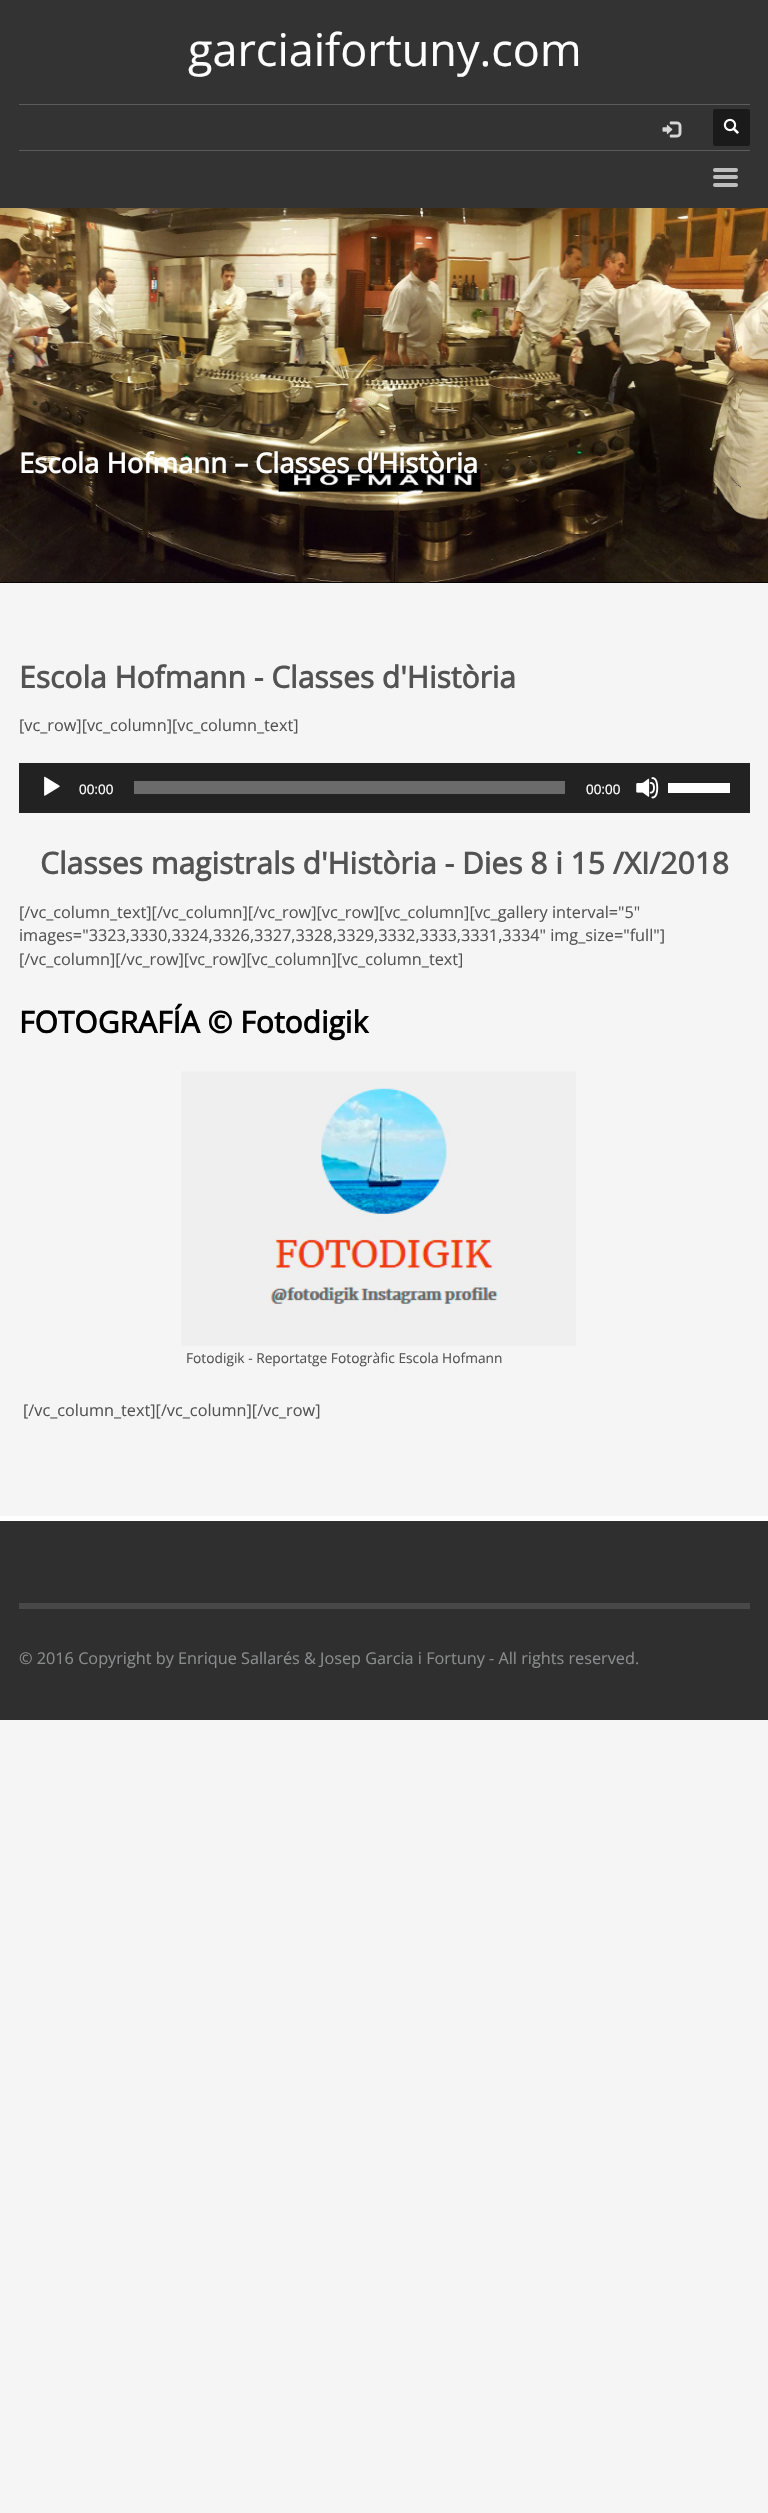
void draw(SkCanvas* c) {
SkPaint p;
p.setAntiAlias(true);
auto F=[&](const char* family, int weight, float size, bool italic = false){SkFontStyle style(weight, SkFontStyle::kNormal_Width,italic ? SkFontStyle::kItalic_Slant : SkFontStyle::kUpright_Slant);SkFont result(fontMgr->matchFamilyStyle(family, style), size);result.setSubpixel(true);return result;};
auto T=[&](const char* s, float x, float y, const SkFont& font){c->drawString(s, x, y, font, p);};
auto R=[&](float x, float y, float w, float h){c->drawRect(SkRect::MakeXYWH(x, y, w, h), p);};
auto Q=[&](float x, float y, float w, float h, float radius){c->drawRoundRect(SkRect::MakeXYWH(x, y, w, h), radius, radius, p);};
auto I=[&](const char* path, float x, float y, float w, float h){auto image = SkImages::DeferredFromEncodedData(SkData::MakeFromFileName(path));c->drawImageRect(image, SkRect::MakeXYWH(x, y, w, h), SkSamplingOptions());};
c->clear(0xfff5f5f5);
p.setColor(0xff333333);
R(0,0,768,208);
auto f1 = F("Open Sans",400,45);
p.setColor(0xffffffff);
T("garciaifortuny.com",188,66,f1);
p.setColor(0xff5c5c5c);
R(19,104,731,1);
I("1.png",662,121,20,17);
p.setColor(0xff1a1a1a);
Q(713,109,37,37,2.5);
I("2.png",723,118,16,16);
p.setColor(0xff5c5c5c);
R(19,150,731,1);
p.setColor(0xffbebebe);
Q(713,168,25,4,2);
Q(713,175,25,4,2);
Q(713,183,25,4,2);
p.setColor(0xff000000);
R(0,582,768,1);
I("3.png",0,208,768,375);
auto f2 = F("Open Sans",700,27.5);
p.setColor(0xffffffff);
T("Escola Hofmann – Classes d’Història",19,473,f2);
auto f3 = F("Open Sans",700,30);
p.setColor(0xff535353);
T("Escola Hofmann - Classes d'Història",19,688,f3);
auto f4 = F("Open Sans",400,16.25);
T("[vc_row][vc_column][vc_column_text]",19,731,f4);
p.setColor(0xff222222);
R(19,763,731,50);
I("4.png",44,776,16,20);
auto f5 = F("Liberation Sans",400,13.75);
p.setColor(0xffffffff);
T("00:00",79,794,f5);
p.setColor(0xff6b6b6b);
R(134,781,431,13);
p.setColor(0xffffffff);
T("00:00",586,794,f5);
I("5.png",636,777,23,22);
R(668,783,62,10);
p.setColor(0xff535353);
T("Classes magistrals d'Història - Dies 8 i 15 /XI/2018",40,874,f3);
T("[/vc_column_text][/vc_column][/vc_row][vc_row][vc_column][vc_gallery interval=\"5\"",19,918,f4);
T("images=\"3323,3330,3324,3326,3327,3328,3329,3332,3333,3331,3334\" img_size=\"full\"]",19,941,f4);
T("[/vc_column][/vc_row][vc_row][vc_column][vc_column_text]",19,965,f4);
p.setColor(0xff000000);
T("FOTOGRAFÍA © Fotodigik",19,1033,f3);
I("6.png",181,1071,395,275);
auto f6 = F("Open Sans",400,13.75);
p.setColor(0xff535353);
T("Fotodigik - Reportatge Fotogràfic Escola Hofmann",186,1363,f6);
T("[/vc_column_text][/vc_column][/vc_row]",23,1416,f4);
p.setColor(0xff2f2f2f);
R(0,1521,768,199);
p.setColor(0xffffffff);
R(0,1516,768,5);
p.setColor(0xff484848);
R(19,1603,731,6);
p.setColor(0xff8b8c8d);
T("© 2016 Copyright by Enrique Sallarés & Josep Garcia i Fortuny - All rights reserved.",19,1664,f4);
}
